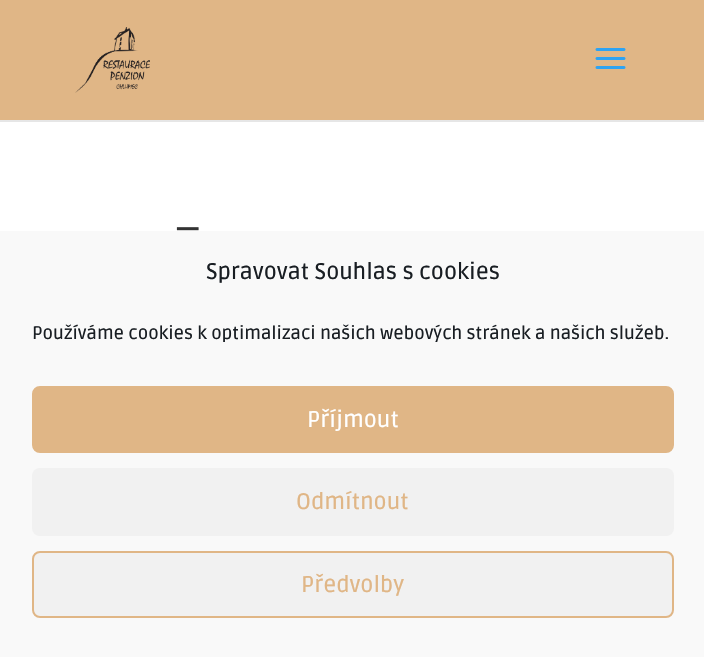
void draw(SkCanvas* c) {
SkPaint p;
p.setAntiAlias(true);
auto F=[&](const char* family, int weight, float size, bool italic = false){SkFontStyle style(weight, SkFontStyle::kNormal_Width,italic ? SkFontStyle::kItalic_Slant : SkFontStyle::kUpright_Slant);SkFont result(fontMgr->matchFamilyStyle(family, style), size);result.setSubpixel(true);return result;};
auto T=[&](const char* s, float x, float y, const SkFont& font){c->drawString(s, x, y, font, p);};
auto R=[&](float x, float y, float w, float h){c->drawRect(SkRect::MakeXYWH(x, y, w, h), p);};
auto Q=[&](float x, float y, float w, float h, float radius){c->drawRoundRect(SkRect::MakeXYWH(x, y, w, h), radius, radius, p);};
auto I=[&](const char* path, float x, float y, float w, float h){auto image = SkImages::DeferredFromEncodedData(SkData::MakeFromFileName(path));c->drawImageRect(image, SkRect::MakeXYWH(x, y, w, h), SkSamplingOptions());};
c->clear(0xffffffff);
p.setColor(0xffe6e6e6);
R(0,120,704,2);
p.setColor(0xffe0b686);
R(0,0,704,120);
I("1.png",75,27,75,66);
I("2.png",595,48,31,21);
auto f1 = F("Ropa Sans",400,45);
p.setColor(0xff333333);
T("–",174,242,f1);
p.setColor(0xfff9f9f9);
R(0,231,704,426);
auto f2 = F("Ruda",500,22.5);
p.setColor(0xff191e23);
T("Spravovat Souhlas s cookies",206,279,f2);
auto f3 = F("Ruda",500,18);
T("Používáme cookies k optimalizaci našich webových stránek a našich služeb.",32,339,f3);
p.setColor(0xffe0b686);
c->drawRoundRect(SkRect::MakeXYWH(33,387,640,65),7,7,p);
p.setStroke(true);
p.setStrokeWidth(2);
c->drawRoundRect(SkRect::MakeXYWH(33,387,640,65),7,7,p);
p.setStroke(false);
p.setColor(0xffffffff);
T("Příjmout",307,427,f2);
p.setColor(0xfff1f1f1);
Q(32,468,642,68,8);
p.setColor(0xffe0b686);
T("Odmítnout",296,509,f2);
p.setColor(0xfff1f1f1);
c->drawRoundRect(SkRect::MakeXYWH(33,552,640,65),7,7,p);
p.setStroke(true);
p.setColor(0xffe0b686);
c->drawRoundRect(SkRect::MakeXYWH(33,552,640,65),7,7,p);
p.setStroke(false);
T("Předvolby",301,592,f2);
}
